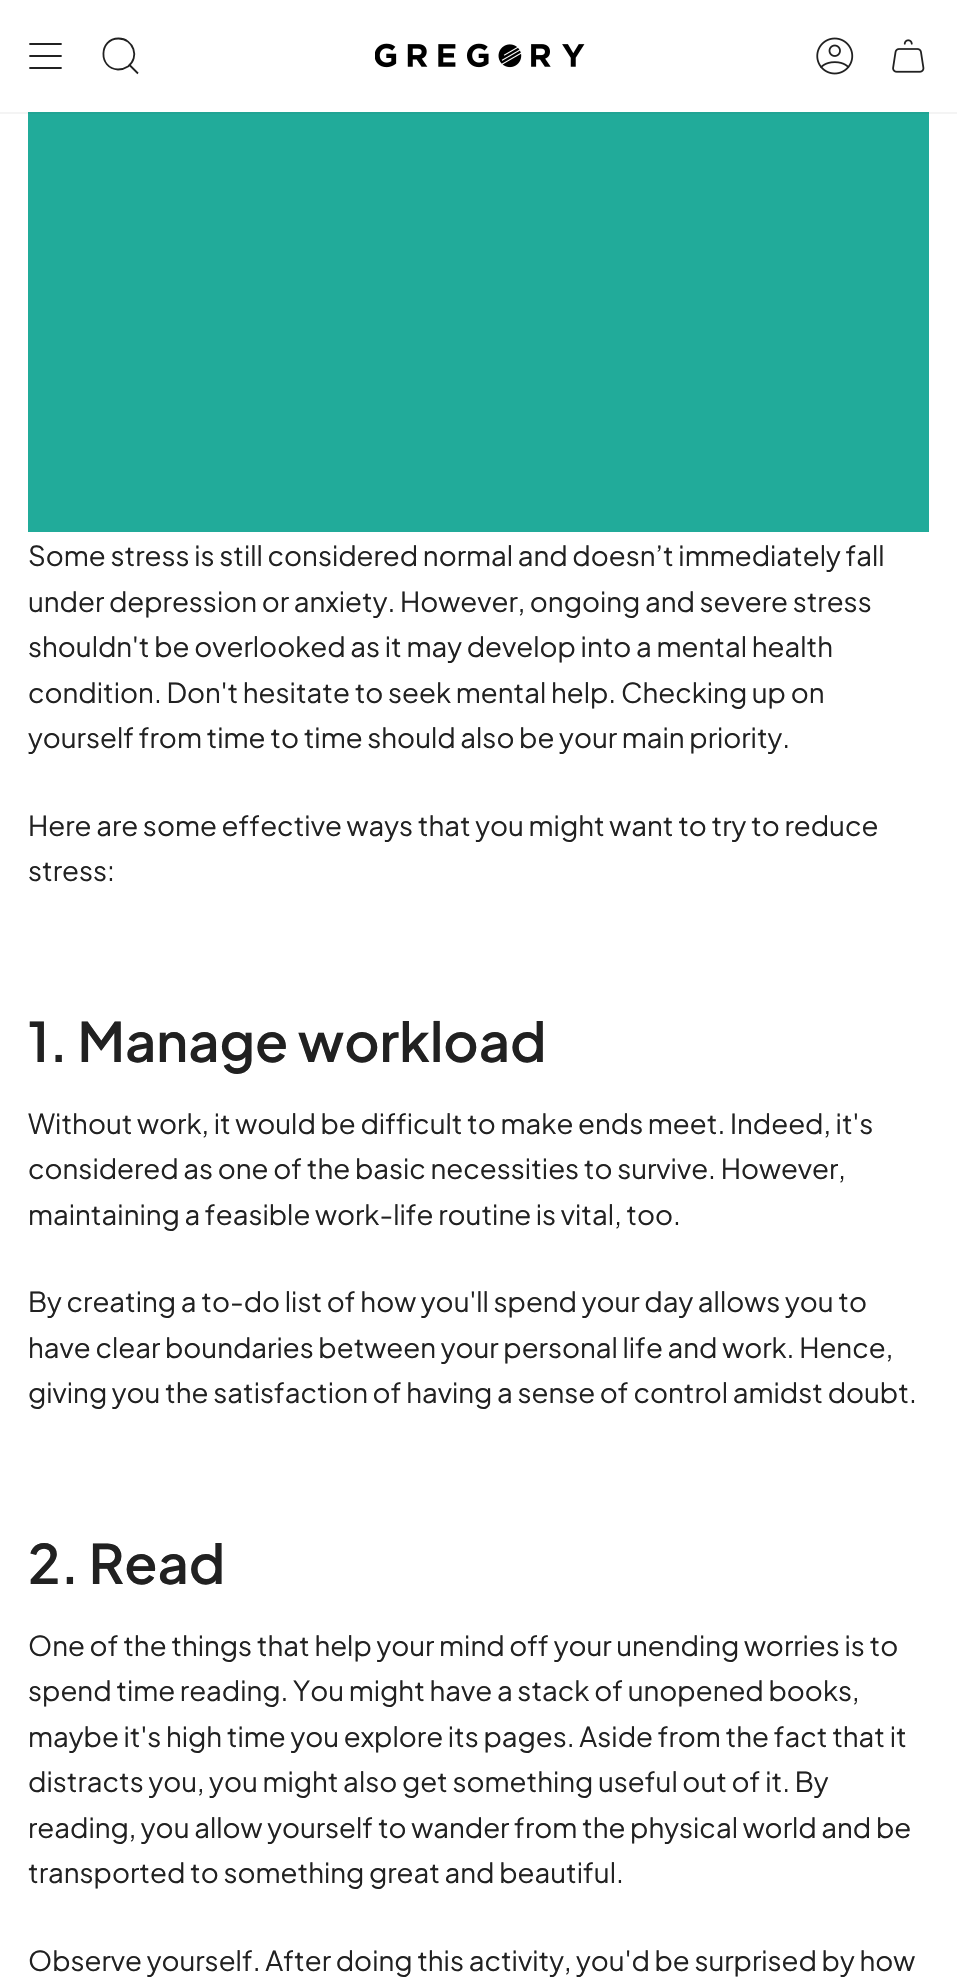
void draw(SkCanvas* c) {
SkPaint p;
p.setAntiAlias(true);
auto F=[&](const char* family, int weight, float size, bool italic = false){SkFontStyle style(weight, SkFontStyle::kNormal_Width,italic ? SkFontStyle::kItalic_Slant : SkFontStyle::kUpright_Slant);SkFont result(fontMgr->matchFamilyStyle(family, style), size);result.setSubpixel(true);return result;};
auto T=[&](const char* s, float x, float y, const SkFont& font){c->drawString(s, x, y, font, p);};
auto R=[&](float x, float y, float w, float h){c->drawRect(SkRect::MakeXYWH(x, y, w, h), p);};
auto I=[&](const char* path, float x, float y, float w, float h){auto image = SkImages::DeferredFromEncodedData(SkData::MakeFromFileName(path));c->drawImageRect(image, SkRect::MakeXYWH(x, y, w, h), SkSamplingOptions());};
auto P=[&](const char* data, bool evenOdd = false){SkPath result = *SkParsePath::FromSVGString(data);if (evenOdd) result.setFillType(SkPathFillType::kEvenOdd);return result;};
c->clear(0xffffffff);
p.setColor(0xfff4f4f4);
R(0,112,957,2);
p.setStroke(true);
p.setStrokeWidth(1.8);
p.setStrokeCap(SkPaint::kRound_Cap);
p.setStrokeJoin(SkPaint::kRound_Join);
p.setColor(0xff212121);
c->drawPath(P("M30 44h31m-31 12h31m-31 12h31"),p);
p.setStrokeCap(SkPaint::kButt_Cap);
p.setStrokeJoin(SkPaint::kMiter_Join);
c->drawPath(P("M118.5 38.5c15 0 21.5 19 9.5 28c-3 2-6.5 3-10 3c-20-1-19-31 .5-31zm11 26.5l8.5 8.5"),p);
I("1.png",375,43,210,25);
I("2.png",816,37,38,38);
I("3.png",892,39,33,34);
p.setStroke(false);
p.setColor(0xff21ab9a);
R(28,114,901,418);
p.setColor(0xff21a494);
R(28,112,901,2);
auto f1 = F("Plus Jakarta Sans",400,27.55);
p.setColor(0xff212121);
T("Some stress is still considered normal and doesn’t immediately fall",28,566,f1);
T("under depression or anxiety. However, ongoing and severe stress",28,612,f1);
T("shouldn't be overlooked as it may develop into a mental health",28,657,f1);
T("condition. Don't hesitate to seek mental help. Checking up on",28,703,f1);
T("yourself from time to time should also be your main priority.",28,748,f1);
T("Here are some effective ways that you might want to try to reduce",28,836,f1);
T("stress:",28,881,f1);
auto f2 = F("Plus Jakarta Sans",600,54.25);
T("1. Manage workload",28,1062,f2);
T("Without work, it would be difficult to make ends meet. Indeed, it's",28,1134,f1);
T("considered as one of the basic necessities to survive. However,",28,1179,f1);
T("maintaining a feasible work-life routine is vital, too.",28,1225,f1);
T("By creating a to-do list of how you'll spend your day allows you to",28,1312,f1);
T("have clear boundaries between your personal life and work. Hence,",28,1358,f1);
T("giving you the satisfaction of having a sense of control amidst doubt.",28,1403,f1);
T("2. Read",28,1584,f2);
T("One of the things that help your mind off your unending worries is to",28,1656,f1);
T("spend time reading. You might have a stack of unopened books,",28,1701,f1);
T("maybe it's high time you explore its pages. Aside from the fact that it",28,1747,f1);
T("distracts you, you might also get something useful out of it. By",28,1792,f1);
T("reading, you allow yourself to wander from the physical world and be",28,1838,f1);
T("transported to something great and beautiful.",28,1883,f1);
T("Observe yourself. After doing this activity, you'd be surprised by how",28,1971,f1);
}
